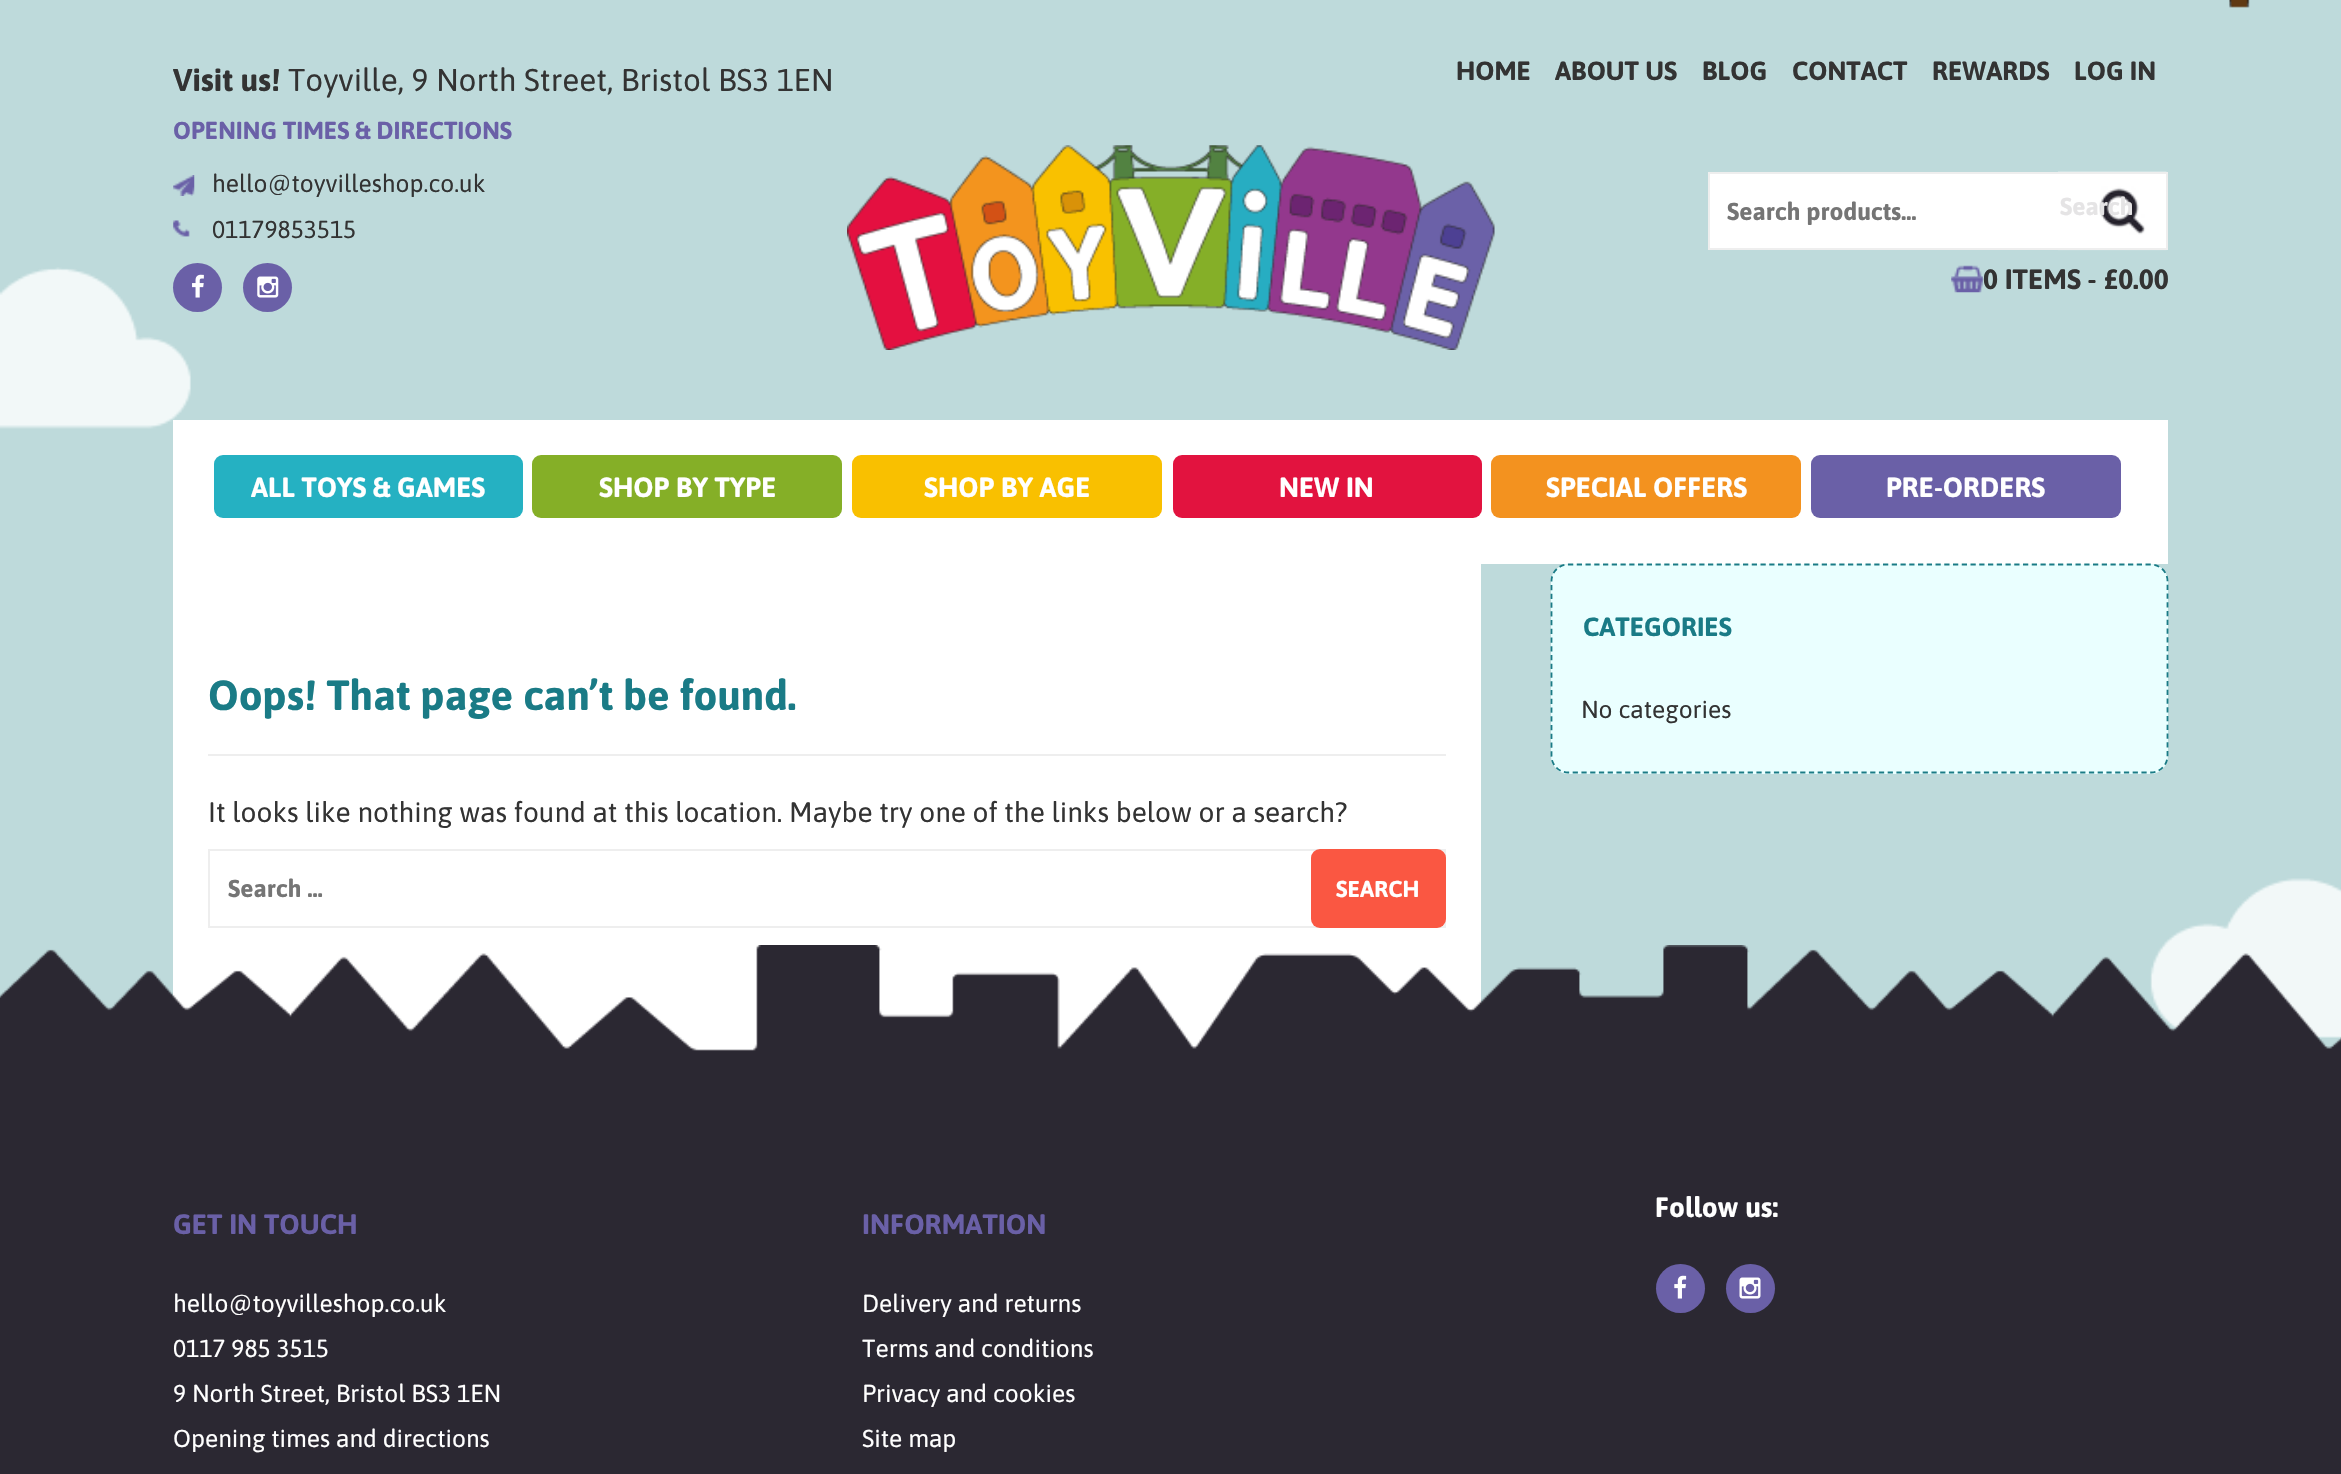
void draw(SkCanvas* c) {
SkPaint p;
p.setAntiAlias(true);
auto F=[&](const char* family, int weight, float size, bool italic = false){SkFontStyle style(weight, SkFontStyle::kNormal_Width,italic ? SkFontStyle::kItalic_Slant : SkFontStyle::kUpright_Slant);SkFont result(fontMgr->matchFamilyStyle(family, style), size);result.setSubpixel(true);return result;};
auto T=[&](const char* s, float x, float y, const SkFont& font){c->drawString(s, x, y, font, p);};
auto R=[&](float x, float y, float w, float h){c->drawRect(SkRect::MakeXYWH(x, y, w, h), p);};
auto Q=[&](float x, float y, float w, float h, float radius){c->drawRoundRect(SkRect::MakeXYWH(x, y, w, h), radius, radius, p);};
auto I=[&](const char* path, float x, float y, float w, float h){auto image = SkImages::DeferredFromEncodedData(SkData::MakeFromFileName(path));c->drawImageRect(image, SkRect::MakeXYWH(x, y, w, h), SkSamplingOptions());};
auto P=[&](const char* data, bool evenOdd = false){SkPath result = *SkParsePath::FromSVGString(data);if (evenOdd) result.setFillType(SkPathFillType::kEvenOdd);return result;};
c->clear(0xffbedadb);
I("1.png",0,267,2341,771);
I("2.png",2229,0,21,8);
auto f1 = F("Asap",700,31.5);
p.setColor(0xff333333);
T("Visit us!",173,91,f1);
auto f2 = F("Asap",400,31.5);
T("Toyville, 9 North Street, Bristol BS3 1EN",288,91,f2);
auto f3 = F("Asap",700,24.5);
p.setColor(0xff6a60a7);
T("OPENING TIMES & DIRECTIONS",173,139,f3);
I("3.png",173,175,22,21);
auto f4 = F("Asap",400,24.5);
p.setColor(0xff333333);
T("hello@toyvilleshop.co.uk",212,192,f4);
I("4.png",173,220,17,17);
T("01179853515",212,238,f4);
p.setColor(0xff6a60a7);
c->drawCircle(197.5,287.5,24.5,p);
I("5.png",192,274,12,24);
c->drawCircle(267.5,287.5,24.5,p);
I("6.png",257,276,22,22);
auto f5 = F("Asap",700,26.25);
p.setColor(0xff333333);
T("HOME",1456,80,f5);
T("ABOUT US",1555,80,f5);
T("BLOG",1702,80,f5);
T("CONTACT",1792,80,f5);
T("REWARDS",1932,80,f5);
T("LOG IN",2074,80,f5);
p.setColor(0xffffffff);
R(1710,174,348,74);
I("7.png",2058,171,109,80);
p.setStroke(true);
p.setStrokeWidth(2);
p.setColor(0xffeeeeee);
c->drawRect(SkRect::MakeXYWH(1709,173,458,76),p);
p.setStroke(false);
p.setColor(0xff757575);
T("Search products…",1727,220,f3);
p.setColor(0xffe5e4e5);
T("Search",2060,215,f3);
I("8.png",1951,265,32,28);
auto f6 = F("Asap",700,28);
p.setColor(0xff333333);
T("0 ITEMS - £0.00",1983,289,f6);
I("9.png",847,145,648,205);
p.setColor(0xffffffff);
R(173,420,1995,144);
p.setColor(0xff25b1c2);
Q(214,455,309,63,9);
auto f7 = F("Asap",700,27.75);
p.setColor(0xffffffff);
T("ALL TOYS & GAMES",251,497,f7);
p.setColor(0xff85af27);
Q(532,455,310,63,9);
p.setColor(0xffffffff);
T("SHOP BY TYPE",599,497,f7);
p.setColor(0xfff9c000);
Q(852,455,310,63,9);
p.setColor(0xffffffff);
T("SHOP BY AGE",924,497,f7);
p.setColor(0xffe2133f);
Q(1173,455,309,63,9);
p.setColor(0xffffffff);
T("NEW IN",1279,497,f7);
p.setColor(0xfff3921f);
Q(1491,455,310,63,9);
p.setColor(0xffffffff);
T("SPECIAL OFFERS",1546,497,f7);
p.setColor(0xff6a60a7);
Q(1811,455,310,63,9);
p.setColor(0xffffffff);
T("PRE-ORDERS",1886,497,f7);
R(173,564,1308,487);
p.setColor(0xffeeeeee);
R(208,754,1238,2);
auto f8 = F("Asap",700,42);
p.setColor(0xff1a7b86);
T("Oops! That page can’t be found.",208,710,f8);
auto f9 = F("Asap",400,28);
p.setColor(0xff333333);
T("It looks like nothing was found at this location. Maybe try one of the links below or a search?",208,822,f9);
p.setStroke(true);
p.setColor(0xffeeeeee);
c->drawRect(SkRect::MakeXYWH(209,850,1236,77),p);
p.setStroke(false);
p.setColor(0xff757575);
T("Search …",228,897,f3);
p.setColor(0xfffa5742);
Q(1311,849,135,79,9);
auto f10 = F("Asap",700,23);
p.setColor(0xffffffff);
T("SEARCH",1336,897,f10);
p.setColor(0xffeaffff);
Q(1551,564,617,210,18);
p.setStroke(true);
p.setStrokeWidth(1.8);
p.setColor(0xff1a7b86);
p.setPathEffect(SkDashPathEffect::Make({{5.25f,3.5f}}, 0));
c->drawPath(P("M1568 564.5h583c9 0 16.5 7.5 16.5 16.5v175c0 9-7.5 16.5-16.5 16.5h-583c-9 0-16.5-7.5-16.5-16.5v-175c0-9 7.5-16.5 16.5-16.5z"),p);
p.setPathEffect(nullptr);
p.setStroke(false);
T("CATEGORIES",1583,636,f5);
p.setColor(0xff333333);
T("No categories",1581,718,f4);
I("10.png",0,945,2341,175);
p.setColor(0xff2b2832);
R(0,1120,2341,354);
p.setColor(0xffffffff);
T("Follow us:",1655,1217,f6);
p.setColor(0xff6a60a7);
c->drawCircle(1680.5,1288.5,24.5,p);
I("11.png",1674,1275,13,24);
c->drawCircle(1750.5,1288.5,24.5,p);
I("12.png",1739,1277,22,22);
T("GET IN TOUCH",173,1234,f6);
p.setColor(0xffffffff);
T("hello@toyvilleshop.co.uk",173,1312,f4);
T("0117 985 3515",173,1357,f4);
T("9 North Street, Bristol BS3 1EN",173,1402,f4);
T("Opening times and directions",173,1447,f4);
p.setColor(0xff6a60a7);
T("INFORMATION",862,1234,f6);
p.setColor(0xffffffff);
T("Delivery and returns",862,1312,f4);
T("Terms and conditions",862,1357,f4);
T("Privacy and cookies",862,1402,f4);
T("Site map",862,1447,f4);
}
